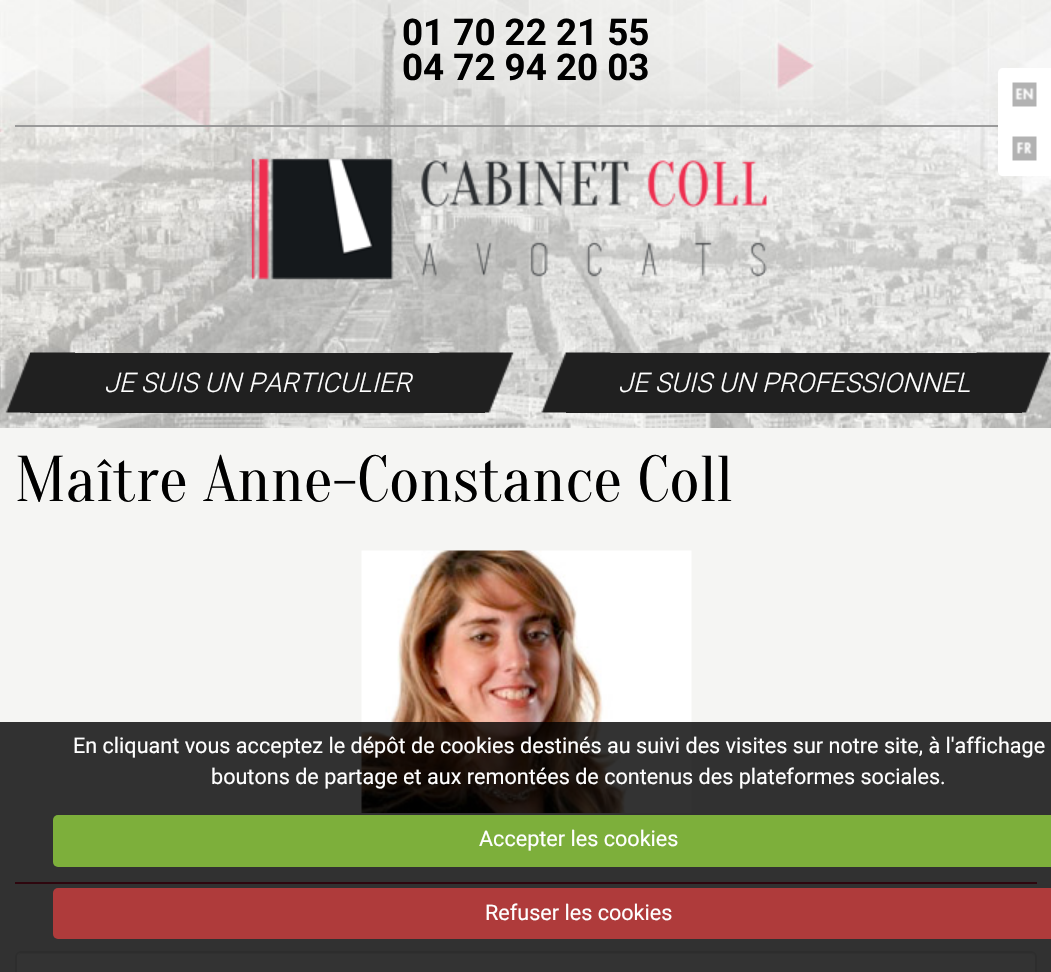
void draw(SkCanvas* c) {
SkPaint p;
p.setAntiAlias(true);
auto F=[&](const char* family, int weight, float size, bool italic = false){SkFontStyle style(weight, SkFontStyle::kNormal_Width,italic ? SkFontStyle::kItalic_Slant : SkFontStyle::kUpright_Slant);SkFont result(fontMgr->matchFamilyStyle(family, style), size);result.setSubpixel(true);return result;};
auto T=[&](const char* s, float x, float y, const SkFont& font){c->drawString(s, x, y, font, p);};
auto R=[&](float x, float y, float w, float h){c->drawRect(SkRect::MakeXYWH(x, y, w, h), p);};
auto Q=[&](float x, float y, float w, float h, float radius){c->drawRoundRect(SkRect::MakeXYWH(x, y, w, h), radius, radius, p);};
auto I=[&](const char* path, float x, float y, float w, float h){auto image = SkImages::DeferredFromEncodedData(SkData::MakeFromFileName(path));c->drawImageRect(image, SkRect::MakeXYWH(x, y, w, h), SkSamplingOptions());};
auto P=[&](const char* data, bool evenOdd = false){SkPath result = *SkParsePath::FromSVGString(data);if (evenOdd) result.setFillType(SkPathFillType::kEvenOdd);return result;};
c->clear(0xffffffff);
I("1.png",0,0,1051,428);
auto f1 = F("Roboto",700,36.75);
p.setColor(0xff000000);
T("01 70 22 21 55",402,45,f1);
T("04 72 94 20 03",402,80,f1);
p.setColor(0xff999999);
R(15,125,983,2);
I("2.png",251,158,516,122);
p.setColor(0xffffffff);
c->drawPath(P("M1003 68h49v54h-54v-49c0-3 2-5 5-5z"),p);
I("3.png",1012,82,25,25);
c->drawPath(P("M998 122h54v54h-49c-3 0-5-2-5-5z"),p);
I("4.png",1012,136,25,25);
I("5.png",5,352,509,61);
p.setColor(0xff202020);
R(30,353,455,60);
auto f2 = F("Roboto",300,27,true);
p.setColor(0xffffffff);
T("JE SUIS UN PARTICULIER",104,392,f2);
I("6.png",541,352,510,61);
p.setColor(0xff202020);
R(566,353,456,60);
p.setColor(0xffffffff);
T("JE SUIS UN PROFESSIONNEL",618,392,f2);
p.setColor(0xfff5f5f3);
R(0,428,1051,544);
auto f3 = F("Oranienbaum",400,64.75);
p.setColor(0xff000000);
T("Maître Anne-Constance Coll",15,501,f3);
I("7.png",361,550,331,263);
p.setColor(0xffe61c44);
R(15,882,1022,2);
p.setColor(0xffffffff);
Q(15,951,1022,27,6);
p.setColor(0xffececec);
c->drawPath(P("M21 954h1009c3 0 5 2 5 4c0-3-2-5-5-5h-1008c-2 0-3 1-4 2z"),p);
p.setStroke(true);
p.setStrokeWidth(2);
p.setColor(0xffdddddd);
c->drawRoundRect(SkRect::MakeXYWH(16,952,1020,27),5,5,p);
p.setStroke(false);
p.setColor(0xcc000000);
R(0,722,1051,250);
auto f4 = F("Roboto",400,21.6);
p.setColor(0xffffffff);
T("En cliquant vous acceptez le dépôt de cookies destinés au suivi des visites sur notre site, à l'affichage",73,753,f4);
T("boutons de partage et aux remontées de contenus des plateformes sociales.",211,784,f4);
p.setColor(0xff7daf3b);
Q(53,815,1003,52,5);
p.setColor(0xffffffff);
T("Accepter les cookies",479,846,f4);
p.setColor(0xffaf3b3b);
Q(53,888,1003,51,5);
p.setColor(0xffffffff);
T("Refuser les cookies",485,920,f4);
}
